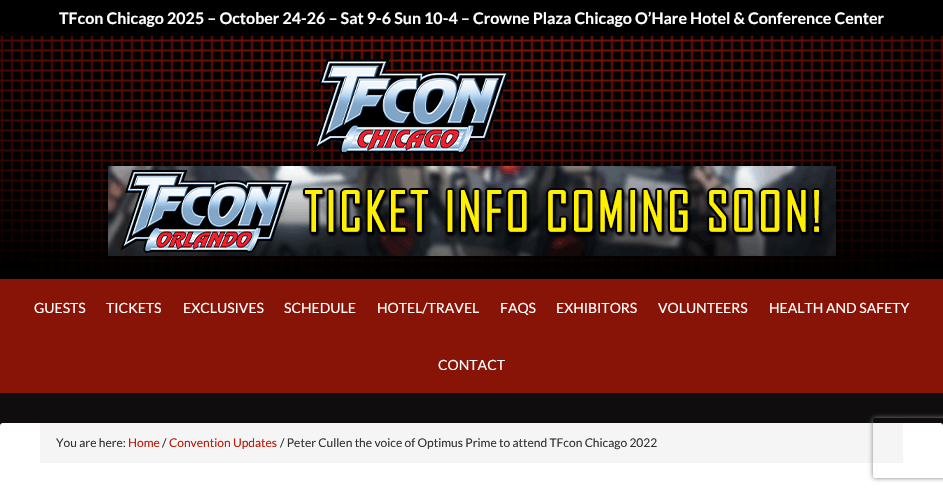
void draw(SkCanvas* c) {
SkPaint p;
p.setAntiAlias(true);
auto F=[&](const char* family, int weight, float size, bool italic = false){SkFontStyle style(weight, SkFontStyle::kNormal_Width,italic ? SkFontStyle::kItalic_Slant : SkFontStyle::kUpright_Slant);SkFont result(fontMgr->matchFamilyStyle(family, style), size);result.setSubpixel(true);return result;};
auto T=[&](const char* s, float x, float y, const SkFont& font){c->drawString(s, x, y, font, p);};
auto R=[&](float x, float y, float w, float h){c->drawRect(SkRect::MakeXYWH(x, y, w, h), p);};
auto Q=[&](float x, float y, float w, float h, float radius){c->drawRoundRect(SkRect::MakeXYWH(x, y, w, h), radius, radius, p);};
auto I=[&](const char* path, float x, float y, float w, float h){auto image = SkImages::DeferredFromEncodedData(SkData::MakeFromFileName(path));c->drawImageRect(image, SkRect::MakeXYWH(x, y, w, h), SkSamplingOptions());};
auto P=[&](const char* data, bool evenOdd = false){SkPath result = *SkParsePath::FromSVGString(data);if (evenOdd) result.setFillType(SkPathFillType::kEvenOdd);return result;};
c->clear(0xff0f0d0d);
p.setColor(0xff000000);
R(0,0,943,36);
auto f1 = F("Lato",700,16);
p.setColor(0xffffffff);
T("TFcon Chicago 2025 – October 24-26 – Sat 9-6 Sun 10-4 – Crowne Plaza Chicago O’Hare Hotel & Conference Center",59,24,f1);
p.setColor(0xff000000);
R(0,272,943,7);
I("1.png",0,36,943,236);
I("2.png",312,59,198,95);
I("3.png",108,166,728,90);
p.setColor(0xff871407);
R(0,279,943,114);
auto f2 = F("Lato",400,14);
p.setColor(0xffffffff);
T("GUESTS",34,313,f2);
T("TICKETS",106,313,f2);
T("EXCLUSIVES",183,313,f2);
T("SCHEDULE",284,313,f2);
T("HOTEL/TRAVEL",377,313,f2);
T("FAQS",500,313,f2);
T("EXHIBITORS",556,313,f2);
T("VOLUNTEERS",658,313,f2);
T("HEALTH AND SAFETY",769,313,f2);
T("CONTACT",438,370,f2);
Q(0,423,943,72,3);
p.setColor(0xfff5f5f5);
R(40,423,863,40);
auto f3 = F("Lato",400,12);
p.setColor(0xff333333);
T("You are here:",56,447,f3);
p.setColor(0xffbb1b09);
T("Home",128,447,f3);
p.setColor(0xff333333);
T("/",162,447,f3);
p.setColor(0xffbb1b09);
T("Convention Updates",169,447,f3);
p.setColor(0xff333333);
T("/ Peter Cullen the voice of Optimus Prime to attend TFcon Chicago 2022",280,447,f3);
c->save();
c->clipPath(P("M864 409h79v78h-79zm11 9h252c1 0 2 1 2 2v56c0 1-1 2-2 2h-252c-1 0-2-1-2-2v-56c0-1 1-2 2-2z",true),true);
p.setColor(0xff808080);
p.setMaskFilter(SkMaskFilter::MakeBlur(kNormal_SkBlurStyle, 2.5));
c->drawRoundRect(SkRect::MakeXYWH(873,418,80,60),2,2,p);
p.setMaskFilter(nullptr);
c->restore();
}
